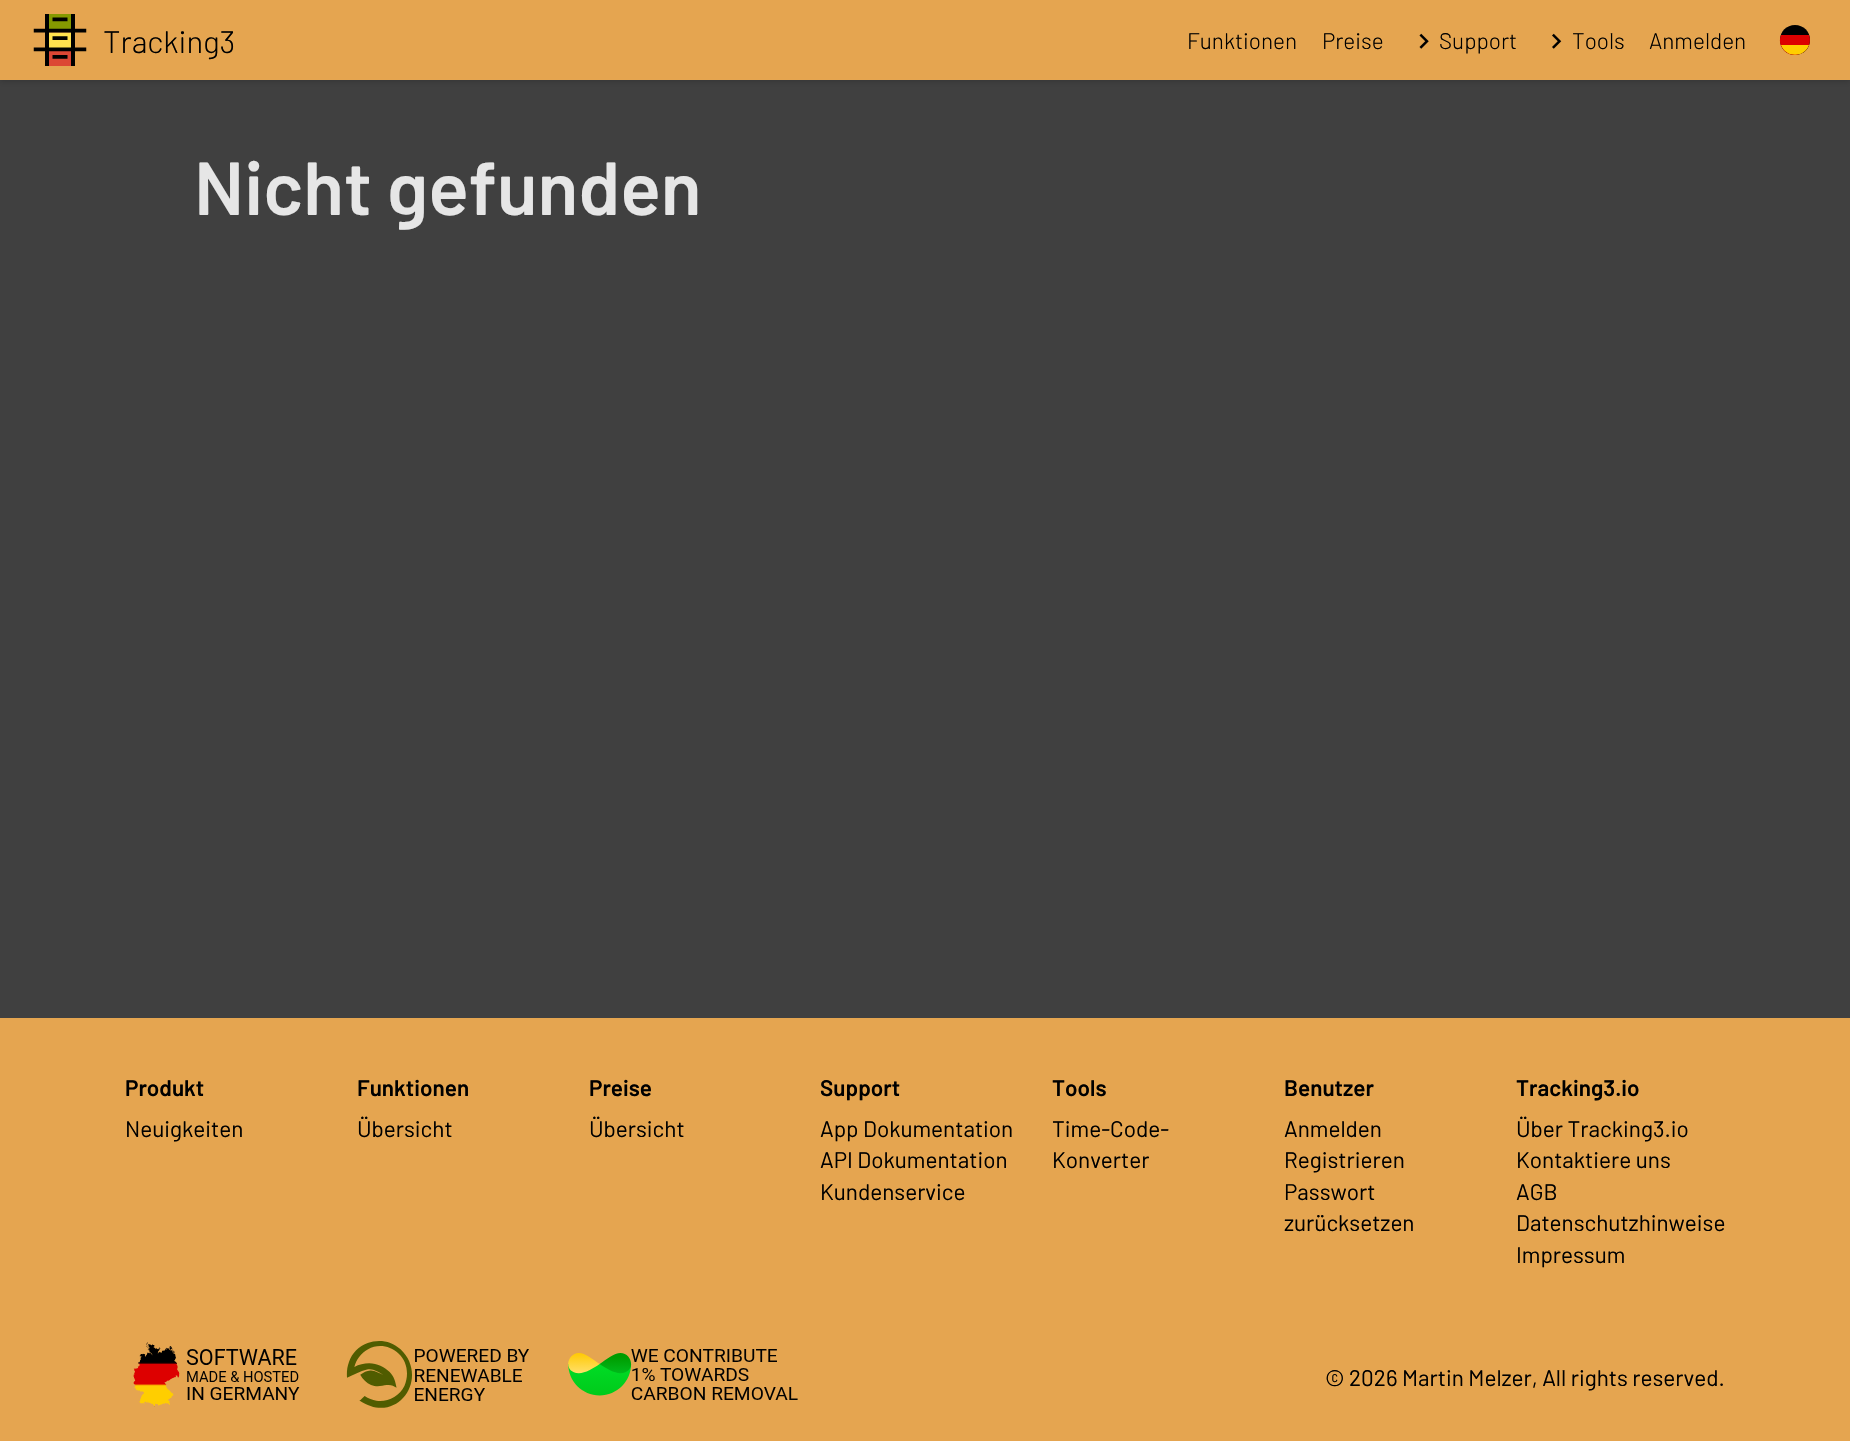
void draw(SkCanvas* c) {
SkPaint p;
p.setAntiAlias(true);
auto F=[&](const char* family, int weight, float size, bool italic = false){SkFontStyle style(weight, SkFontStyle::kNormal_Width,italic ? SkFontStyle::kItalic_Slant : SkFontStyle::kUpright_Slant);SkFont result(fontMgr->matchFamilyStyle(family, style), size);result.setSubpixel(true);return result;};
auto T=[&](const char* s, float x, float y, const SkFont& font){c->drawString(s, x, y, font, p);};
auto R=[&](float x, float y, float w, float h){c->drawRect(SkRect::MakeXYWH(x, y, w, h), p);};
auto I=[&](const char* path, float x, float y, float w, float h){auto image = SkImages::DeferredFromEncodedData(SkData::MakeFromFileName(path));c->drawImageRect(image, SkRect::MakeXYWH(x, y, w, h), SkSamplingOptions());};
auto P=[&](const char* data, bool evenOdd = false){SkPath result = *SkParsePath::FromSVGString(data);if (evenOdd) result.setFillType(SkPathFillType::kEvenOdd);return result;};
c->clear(0xff404040);
p.setColor(0x33000000);
p.setMaskFilter(SkMaskFilter::MakeBlur(kNormal_SkBlurStyle, 3));
c->drawRect(SkRect::MakeXYWH(0,1,1850,80),p);
p.setMaskFilter(nullptr);
p.setColor(0xffe5a550);
R(0,0,1850,80);
I("1.png",33,14,54,52);
auto f1 = F("Barlow",300,31);
p.setColor(0xff000000);
T("Tracking3",103,53,f1);
auto f2 = F("Barlow",300,22.5);
T("Funktionen",1187,49,f2);
T("Preise",1322,49,f2);
I("2.png",1419,33,10,16);
T("Support",1439,49,f2);
I("3.png",1552,33,10,16);
T("Tools",1572,49,f2);
T("Anmelden",1649,49,f2);
c->drawPath(P("M1795 25c8.5 0 15 6.5 15 15c0 8.5-6.5 15-15 15c-8.5 0-15-6.5-15-15c0-8.5 6.5-15 15-15z"),p);
p.setColor(0xffdd0000);
c->drawPath(P("M1809 35c5 13-10.5 25.5-22.5 17.5c-2.5-1.5-4-4-5.5-6.5c-1.5-3.5-1.5-7.5 0-11z"),p);
p.setColor(0xffffce00);
c->drawPath(P("M1809 45c-4.5 13-23.5 13-28 0z"),p);
auto f3 = F("Barlow",600,75);
p.setColor(0xffe6e6e6);
T("Nicht gefunden",194,215,f3);
p.setColor(0xffe5a550);
R(0,1018,1850,423);
auto f4 = F("Barlow",600,22.5);
p.setColor(0xff000000);
T("Produkt",125,1096,f4);
auto f5 = F("Barlow",400,22.5);
T("Neuigkeiten",125,1137,f5);
T("Funktionen",357,1096,f4);
T("Übersicht",357,1137,f5);
T("Preise",589,1096,f4);
T("Übersicht",589,1137,f5);
T("Support",820,1096,f4);
T("App Dokumentation",820,1137,f5);
T("API Dokumentation",820,1168,f5);
T("Kundenservice",820,1200,f5);
T("Tools",1052,1096,f4);
T("Time-Code-",1052,1137,f5);
T("Konverter",1052,1168,f5);
T("Benutzer",1284,1096,f4);
T("Anmelden",1284,1137,f5);
T("Registrieren",1284,1168,f5);
T("Passwort",1284,1200,f5);
T("zurücksetzen",1284,1231,f5);
T("Tracking3.io",1516,1096,f4);
T("Über Tracking3.io",1516,1137,f5);
T("Kontaktiere uns",1516,1168,f5);
T("AGB",1516,1200,f5);
T("Datenschutzhinweise",1516,1231,f5);
T("Impressum",1516,1263,f5);
I("4.png",133,1342,167,65);
I("5.png",346,1341,183,67);
I("6.png",568,1349,230,51);
T("© 2026 Martin Melzer, All rights reserved.",1325,1386,f5);
}
